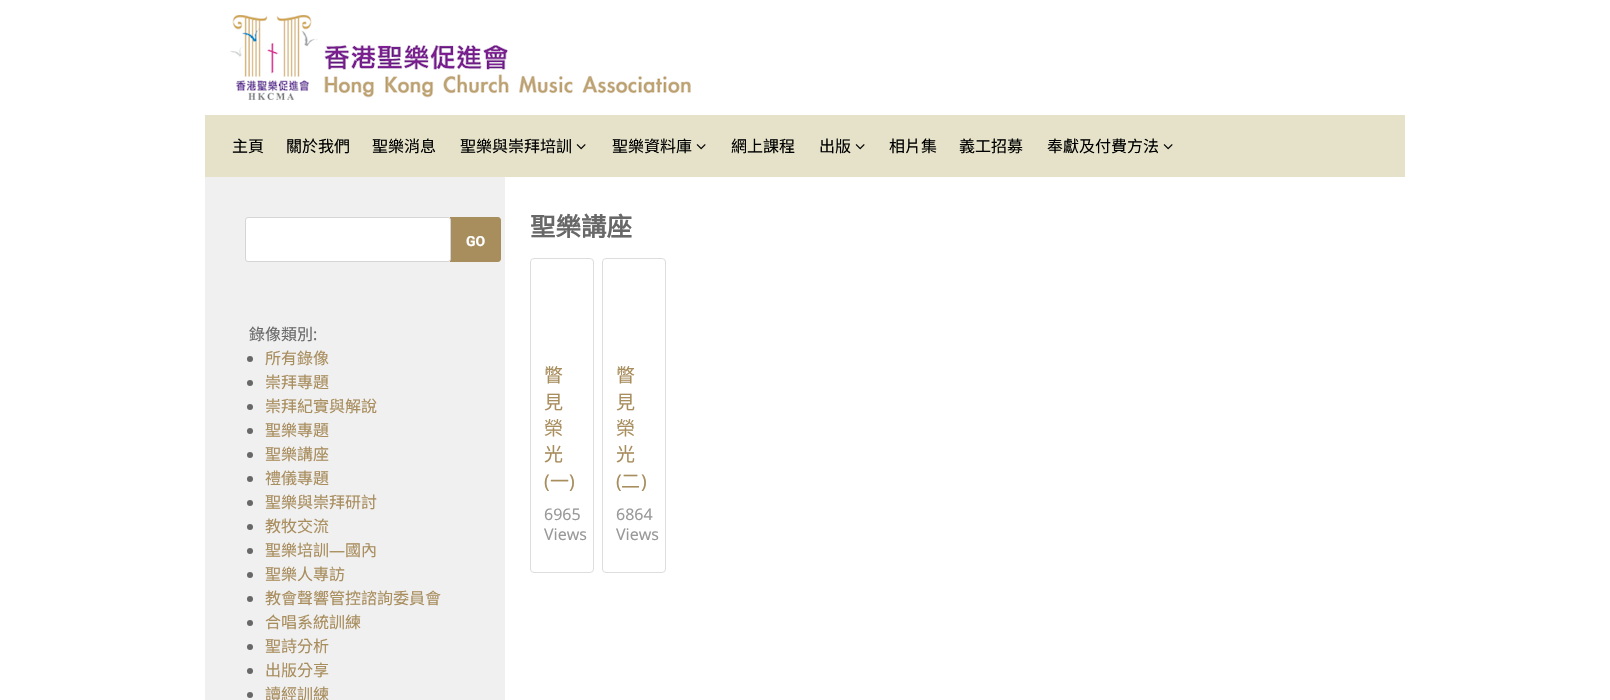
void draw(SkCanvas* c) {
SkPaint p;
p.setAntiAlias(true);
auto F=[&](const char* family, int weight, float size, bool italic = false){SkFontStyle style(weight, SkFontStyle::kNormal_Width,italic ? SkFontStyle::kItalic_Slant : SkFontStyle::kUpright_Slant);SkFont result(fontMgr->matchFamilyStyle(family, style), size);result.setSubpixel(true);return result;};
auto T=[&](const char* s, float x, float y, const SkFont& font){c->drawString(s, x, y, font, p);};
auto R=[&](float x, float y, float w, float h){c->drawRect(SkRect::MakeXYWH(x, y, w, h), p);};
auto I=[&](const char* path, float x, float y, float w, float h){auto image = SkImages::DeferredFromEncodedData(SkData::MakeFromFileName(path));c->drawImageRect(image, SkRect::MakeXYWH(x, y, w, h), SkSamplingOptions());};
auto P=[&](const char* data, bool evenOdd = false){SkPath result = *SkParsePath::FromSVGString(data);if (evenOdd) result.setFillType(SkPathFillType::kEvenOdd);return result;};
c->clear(0xffffffff);
I("1.png",230,15,461,85);
p.setColor(0xffe5e2c9);
R(205,115,1200,62);
auto f1 = F("Noto Sans CJK TC",400,16);
p.setColor(0xff000000);
T("主頁",232,152,f1);
T("關於我們",286,152,f1);
T("聖樂消息",372,152,f1);
T("聖樂與崇拜培訓",460,152,f1);
I("2.png",576,144,10,6);
T("聖樂資料庫",612,152,f1);
I("2.png",696,144,10,6);
T("網上課程",731,152,f1);
T("出版",819,152,f1);
I("2.png",855,144,10,6);
T("相片集",889,152,f1);
T("義工招募",959,152,f1);
T("奉獻及付費方法",1047,152,f1);
I("2.png",1163,144,10,6);
p.setColor(0xfff0f0f0);
R(205,177,300,523);
p.setColor(0xffa88d5d);
c->drawPath(P("M450 217h48c1.5 0 3 1.5 3 3v39c0 1.5-1.5 3-3 3h-48z"),p);
p.setColor(0xffffffff);
c->drawRoundRect(SkRect::MakeXYWH(245.5,217.5,205,44),2.5,2.5,p);
p.setStroke(true);
p.setStrokeWidth(1);
p.setColor(0xffd5d5d5);
c->drawRoundRect(SkRect::MakeXYWH(245.5,217.5,205,44),2.5,2.5,p);
auto f2 = F("Roboto",700,14);
p.setStroke(false);
p.setColor(0xffffffff);
T("GO",466,246,f2);
p.setColor(0xff686868);
T("錄像類別",249,340,f1);
auto f3 = F("Noto Sans",400,16);
T(":",313,340,f3);
c->drawCircle(250,359,3,p);
p.setColor(0xffa88d5d);
T("所有錄像",265,364,f1);
p.setColor(0xff686868);
c->drawCircle(250,383,3,p);
p.setColor(0xffa88d5d);
T("崇拜專題",265,388,f1);
p.setColor(0xff686868);
c->drawCircle(250,407,3,p);
p.setColor(0xffa88d5d);
T("崇拜紀實與解說",265,412,f1);
p.setColor(0xff686868);
c->drawCircle(250,431,3,p);
p.setColor(0xffa88d5d);
T("聖樂專題",265,436,f1);
p.setColor(0xff686868);
c->drawCircle(250,455,3,p);
p.setColor(0xffa88d5d);
T("聖樂講座",265,460,f1);
p.setColor(0xff686868);
c->drawCircle(250,479,3,p);
p.setColor(0xffa88d5d);
T("禮儀專題",265,484,f1);
p.setColor(0xff686868);
c->drawCircle(250,503,3,p);
p.setColor(0xffa88d5d);
T("聖樂與崇拜研討",265,508,f1);
p.setColor(0xff686868);
c->drawCircle(250,527,3,p);
p.setColor(0xffa88d5d);
T("教牧交流",265,532,f1);
p.setColor(0xff686868);
c->drawCircle(250,551,3,p);
p.setColor(0xffa88d5d);
T("聖樂培訓",265,556,f1);
T("—",329,556,f3);
T("國內",345,556,f1);
p.setColor(0xff686868);
c->drawCircle(250,575,3,p);
p.setColor(0xffa88d5d);
T("聖樂人專訪",265,580,f1);
p.setColor(0xff686868);
c->drawCircle(250,599,3,p);
p.setColor(0xffa88d5d);
T("教會聲響管控諮詢委員會",265,604,f1);
p.setColor(0xff686868);
c->drawCircle(250,623,3,p);
p.setColor(0xffa88d5d);
T("合唱系統訓練",265,628,f1);
p.setColor(0xff686868);
c->drawCircle(250,647,3,p);
p.setColor(0xffa88d5d);
T("聖詩分析",265,652,f1);
p.setColor(0xff686868);
c->drawCircle(250,671,3,p);
p.setColor(0xffa88d5d);
T("出版分享",265,676,f1);
p.setColor(0xff686868);
c->drawCircle(250,695,3,p);
p.setColor(0xffa88d5d);
T("讀經訓練",265,700,f1);
auto f4 = F("Noto Sans CJK TC",700,25.5);
p.setColor(0xff686868);
T("聖樂講座",530,236,f4);
p.setStroke(true);
p.setColor(0xffdddddd);
c->drawRoundRect(SkRect::MakeXYWH(530.5,258.5,63,314),3.5,3.5,p);
auto f5 = F("Noto Sans CJK TC",400,19);
p.setStroke(false);
p.setColor(0xffa88d5d);
T("瞥",544,382,f5);
T("見",544,409,f5);
T("榮",544,435,f5);
T("光",544,461,f5);
auto f6 = F("Noto Sans",400,19);
T("(",544,488,f6);
T("一",550,488,f5);
T(")",569,488,f6);
p.setColor(0xff999999);
T("6965",544,520,f3);
T("Views",544,540,f3);
p.setStroke(true);
p.setColor(0xffdddddd);
c->drawRoundRect(SkRect::MakeXYWH(602.5,258.5,63,314),3.5,3.5,p);
p.setStroke(false);
p.setColor(0xffa88d5d);
T("瞥",616,382,f5);
T("見",616,409,f5);
T("榮",616,435,f5);
T("光",616,461,f5);
T("(",616,488,f6);
T("二",621,488,f5);
T(")",641,488,f6);
p.setColor(0xff999999);
T("6864",616,520,f3);
T("Views",616,540,f3);
}
